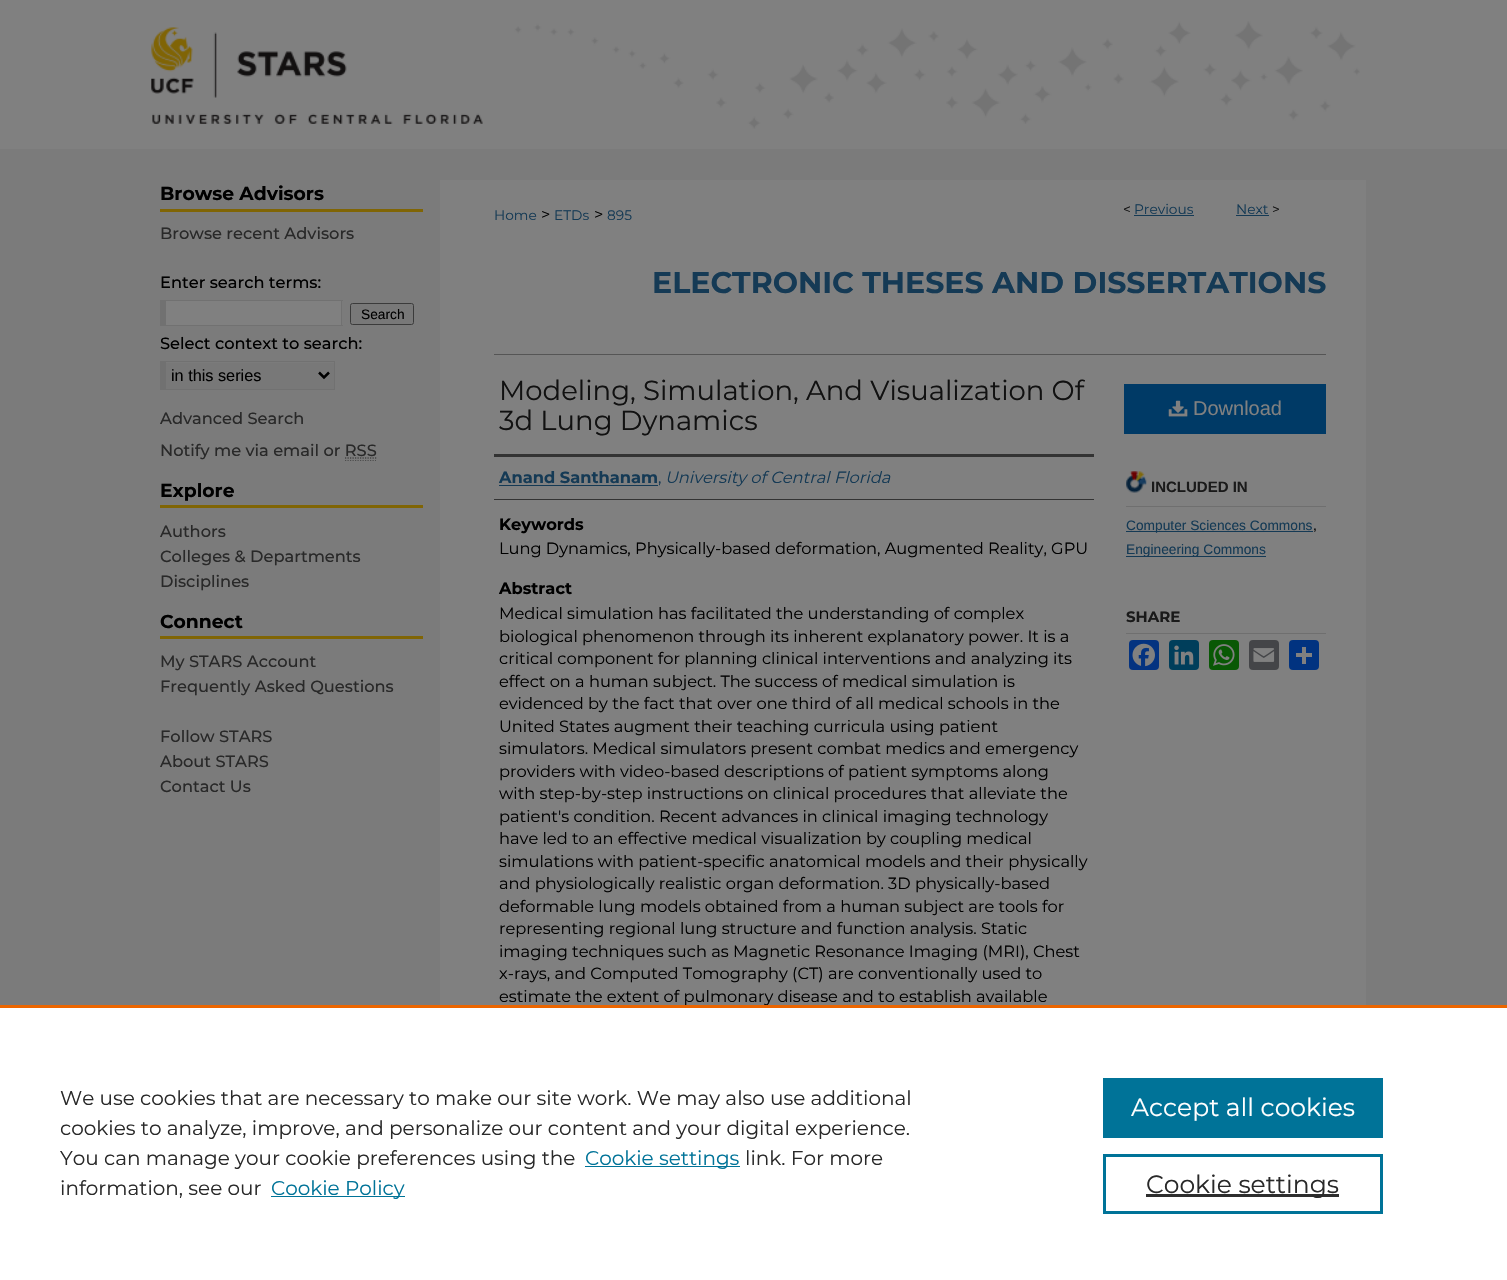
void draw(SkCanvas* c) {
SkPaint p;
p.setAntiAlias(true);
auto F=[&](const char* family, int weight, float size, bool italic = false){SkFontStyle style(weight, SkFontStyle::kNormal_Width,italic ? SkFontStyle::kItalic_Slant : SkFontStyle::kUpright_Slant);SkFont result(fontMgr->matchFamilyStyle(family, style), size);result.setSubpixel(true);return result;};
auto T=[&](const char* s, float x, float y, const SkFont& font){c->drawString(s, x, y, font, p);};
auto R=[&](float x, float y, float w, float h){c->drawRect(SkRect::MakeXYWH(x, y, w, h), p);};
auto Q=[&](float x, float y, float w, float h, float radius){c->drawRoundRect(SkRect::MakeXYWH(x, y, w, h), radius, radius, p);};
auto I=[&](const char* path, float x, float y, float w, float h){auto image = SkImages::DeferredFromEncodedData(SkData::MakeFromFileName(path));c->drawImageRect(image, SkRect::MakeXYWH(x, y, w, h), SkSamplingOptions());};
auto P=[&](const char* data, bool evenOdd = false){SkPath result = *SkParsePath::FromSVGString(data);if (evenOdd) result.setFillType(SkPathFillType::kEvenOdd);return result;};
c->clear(0xff7b7b7b);
p.setColor(0xff808080);
R(0,0,1507,149);
I("1.png",151,21,1209,108);
R(440,180,926,825);
p.setColor(0xff806505);
R(160,209,263,3);
auto f1 = F("Montserrat",700,18.75);
p.setColor(0xff000000);
T("Browse Advisors",160,200,f1);
auto f2 = F("Montserrat",500,16.25);
p.setColor(0xff292929);
T("Browse recent Advisors",160,239,f2);
p.setColor(0xff000000);
T("Enter search terms:",160,288,f2);
p.setColor(0xff808080);
R(166,301,175,24);
p.setColor(0xff717171);
R(160,300,183,1);
R(341,300,1,26);
R(160,325,183,1);
R(160,300,6,26);
p.setColor(0xff787878);
c->drawRoundRect(SkRect::MakeXYWH(350.5,303.5,63,21),2,2,p);
p.setStroke(true);
p.setStrokeWidth(1);
p.setColor(0xff3b3b3b);
c->drawRoundRect(SkRect::MakeXYWH(350.5,303.5,63,21),2,2,p);
auto f3 = F("Liberation Sans",400,13.75);
p.setStroke(false);
p.setColor(0xff000000);
T("Search",361,319,f3);
T("Select context to search:",160,349,f2);
p.setColor(0xff787878);
R(166,363,168,26);
p.setColor(0xff717171);
R(160,361,175,1);
R(334,361,1,29);
R(160,389,175,1);
R(160,361,6,29);
p.setStroke(true);
p.setStrokeWidth(2.5);
p.setColor(0xff000000);
c->drawPath(P("M319 372.5l5 5l5-5"),p);
auto f4 = F("Liberation Sans",400,16.25);
p.setStroke(false);
T("in this series",171,381,f4);
p.setColor(0xff292929);
T("Advanced Search",160,424,f2);
T("Notify me via email or RSS",160,456,f2);
p.setStroke(true);
p.setStrokeWidth(1.2);
p.setPathEffect(SkDashPathEffect::Make({{1.25f,1.25f}}, 0));
c->drawPath(P("M345 458h32"),p);
p.setPathEffect(nullptr);
p.setColor(0xff4d4d4d);
p.setPathEffect(SkDashPathEffect::Make({{1.25f,1.25f}}, 0));
c->drawPath(P("M345 460.5h31"),p);
p.setPathEffect(nullptr);
p.setStroke(false);
p.setColor(0xff806505);
R(160,505,263,3);
p.setColor(0xff000000);
T("Explore",160,497,f1);
p.setColor(0xff292929);
T("Authors",160,537,f2);
T("Colleges & Departments",160,562,f2);
T("Disciplines",160,587,f2);
p.setColor(0xff806505);
R(160,636,263,3);
p.setColor(0xff000000);
T("Connect",160,628,f1);
p.setColor(0xff292929);
T("My STARS Account",160,667,f2);
T("Frequently Asked Questions",160,692,f2);
T("Follow STARS",160,742,f2);
T("About STARS",160,767,f2);
T("Contact Us",160,792,f2);
auto f5 = F("Montserrat",400,13.75);
p.setColor(0xff153a55);
T("Home",494,220,f5);
auto f6 = F("Montserrat",400,16.25);
p.setColor(0xff000000);
T(">",541,220,f6);
p.setColor(0xff153a55);
T("ETDs",554,220,f5);
p.setColor(0xff000000);
T(">",594,220,f6);
p.setColor(0xff153a55);
T("895",607,220,f5);
p.setColor(0xff111111);
T("<",1123,214,f5);
p.setColor(0xff153a55);
T("Previous",1134,214,f5);
R(1134,215,60,1);
T("Next",1236,214,f5);
R(1236,215,33,1);
p.setColor(0xff111111);
T(">",1272,214,f5);
auto f7 = F("Montserrat",700,30);
p.setColor(0xff153a55);
T("ELECTRONIC THESES AND DISSERTATIONS",652,293,f7);
p.setColor(0xff555555);
R(494,354,832,1);
auto f8 = F("Montserrat",400,27.5);
p.setColor(0xff111111);
T("Modeling, Simulation, And Visualization Of",499,400,f8);
T("3d Lung Dynamics",499,430,f8);
p.setColor(0xff333333);
R(494,454,600,3);
R(494,499,600,1);
auto f9 = F("Montserrat",700,16.25);
p.setColor(0xff153a55);
T("Anand Santhanam",499,483,f9);
R(499,485,159,1);
T(",",658,483,f6);
auto f10 = F("Montserrat",400,16.25,true);
T("University of Central Florida",665,483,f10);
p.setColor(0xff000000);
T("Keywords",499,530,f9);
T("Lung Dynamics, Physically-based deformation, Augmented Reality, GPU",499,554,f6);
T("Abstract",499,594,f9);
T("Medical simulation has facilitated the understanding of complex",499,619,f6);
T("biological phenomenon through its inherent explanatory power. It is a",499,642,f6);
T("critical component for planning clinical interventions and analyzing its",499,664,f6);
T("effect on a human subject. The success of medical simulation is",499,687,f6);
T("evidenced by the fact that over one third of all medical schools in the",499,709,f6);
T("United States augment their teaching curricula using patient",499,732,f6);
T("simulators. Medical simulators present combat medics and emergency",499,754,f6);
T("providers with video-based descriptions of patient symptoms along",499,777,f6);
T("with step-by-step instructions on clinical procedures that alleviate the",499,799,f6);
T("patient's condition. Recent advances in clinical imaging technology",499,822,f6);
T("have led to an effective medical visualization by coupling medical",499,844,f6);
T("simulations with patient-specific anatomical models and their physically",499,867,f6);
T("and physiologically realistic organ deformation. 3D physically-based",499,889,f6);
T("deformable lung models obtained from a human subject are tools for",499,912,f6);
T("representing regional lung structure and function analysis. Static",499,934,f6);
T("imaging techniques such as Magnetic Resonance Imaging (MRI), Chest",499,957,f6);
T("x-rays, and Computed Tomography (CT) are conventionally used to",499,979,f6);
T("estimate the extent of pulmonary disease and to establish available",499,1002,f6);
p.setColor(0xff003a66);
R(1124,384,202,50);
I("2.png",1168,400,20,17);
auto f11 = F("Liberation Sans",400,20);
p.setColor(0xff808080);
T("Download",1193,415,f11);
I("3.png",1126,471,21,22);
p.setColor(0xff6f6f6f);
R(1126,506,200,1);
auto f12 = F("Liberation Sans",700,15);
p.setColor(0xff1a1a1a);
T("INCLUDED IN",1151,492,f12);
p.setColor(0xff153a55);
R(1126,531,187,1);
T("Computer Sciences Commons",1126,530,f3);
p.setColor(0xff000000);
T(",",1313,530,f3);
p.setColor(0xff153a55);
R(1126,556,140,1);
T("Engineering Commons",1126,554,f3);
p.setColor(0xff6f6f6f);
R(1126,633,200,1);
auto f13 = F("Montserrat",700,15);
p.setColor(0xff1a1a1a);
T("SHARE",1126,622,f13);
p.setColor(0xff043380);
Q(1129,640,30,30,4);
I("4.png",1132,643,23,24);
p.setColor(0xff003e5b);
Q(1169,640,30,30,4);
I("5.png",1174,645,20,20);
p.setColor(0xff095805);
Q(1209,640,30,30,4);
I("6.png",1213,644,22,22);
p.setColor(0xff444548);
Q(1249,640,30,30,4);
I("7.png",1253,648,22,14);
p.setColor(0xff013380);
Q(1289,640,30,30,4);
p.setColor(0xff808080);
R(1302,647,4,17);
R(1296,653,16,4);
p.setColor(0xffffffff);
R(0,1008,1507,272);
p.setColor(0xffeb6500);
R(0,1005,1507,3);
auto f14 = F("Montserrat",400,20);
p.setColor(0xff292929);
T("We use cookies that are necessary to make our site work. We may also use additional",60,1105,f14);
T("cookies to analyze, improve, and personalize our content and your digital experience.",60,1135,f14);
T("You can manage your cookie preferences using the",60,1165,f14);
p.setColor(0xff007398);
R(585,1166,155,1);
T("Cookie settings",585,1165,f14);
p.setColor(0xff292929);
T("link. For more",745,1165,f14);
T("information, see our",60,1195,f14);
p.setColor(0xff007398);
R(271,1196,134,1);
T("Cookie Policy",271,1195,f14);
R(1103,1078,280,60);
auto f15 = F("Montserrat",400,25);
p.setColor(0xffffffff);
T("Accept all cookies",1131,1116,f15);
p.setStroke(true);
p.setStrokeWidth(3);
p.setColor(0xff007398);
c->drawRect(SkRect::MakeXYWH(1104.5,1155.5,277,57),p);
p.setStroke(false);
p.setColor(0xff2e2e2e);
R(1146,1194,193,3);
p.setColor(0xff292929);
T("Cookie settings",1146,1193,f15);
}
